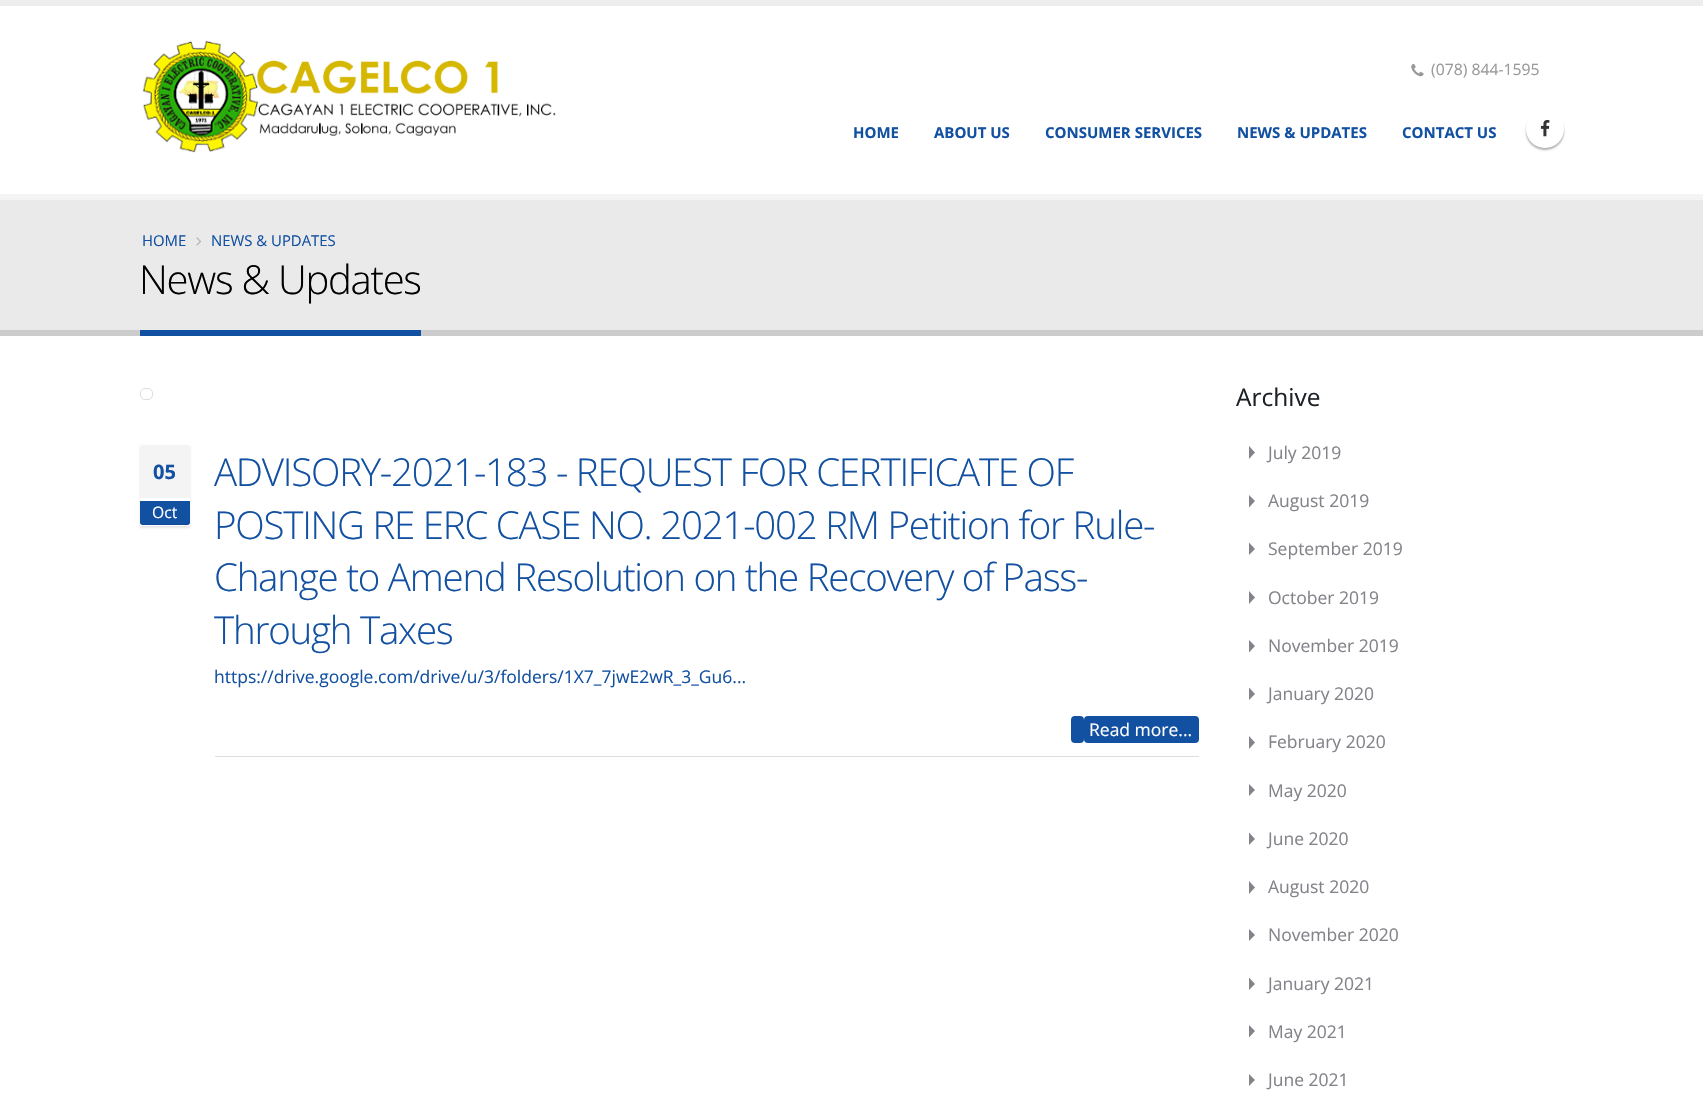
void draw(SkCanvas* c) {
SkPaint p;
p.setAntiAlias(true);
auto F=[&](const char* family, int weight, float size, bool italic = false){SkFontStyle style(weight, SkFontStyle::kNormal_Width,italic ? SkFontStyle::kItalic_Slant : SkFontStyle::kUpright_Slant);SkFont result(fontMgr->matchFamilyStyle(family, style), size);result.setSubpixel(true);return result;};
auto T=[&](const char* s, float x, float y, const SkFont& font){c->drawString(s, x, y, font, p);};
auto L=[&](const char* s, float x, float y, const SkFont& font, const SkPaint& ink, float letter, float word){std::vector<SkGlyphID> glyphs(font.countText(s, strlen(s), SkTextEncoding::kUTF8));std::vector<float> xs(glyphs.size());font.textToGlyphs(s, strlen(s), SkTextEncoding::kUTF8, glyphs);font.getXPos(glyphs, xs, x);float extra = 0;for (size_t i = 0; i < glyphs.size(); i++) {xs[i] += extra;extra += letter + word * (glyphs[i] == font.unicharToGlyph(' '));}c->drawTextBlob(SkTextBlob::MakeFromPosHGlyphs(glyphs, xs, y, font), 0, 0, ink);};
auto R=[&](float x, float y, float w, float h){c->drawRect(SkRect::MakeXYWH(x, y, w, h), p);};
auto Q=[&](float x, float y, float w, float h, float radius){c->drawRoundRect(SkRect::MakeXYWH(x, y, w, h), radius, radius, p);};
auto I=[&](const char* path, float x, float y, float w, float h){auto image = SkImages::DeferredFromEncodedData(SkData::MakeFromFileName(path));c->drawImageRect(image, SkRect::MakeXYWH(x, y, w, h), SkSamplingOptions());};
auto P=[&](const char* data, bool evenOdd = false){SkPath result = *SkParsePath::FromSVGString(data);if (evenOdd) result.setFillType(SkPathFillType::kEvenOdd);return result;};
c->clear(0xffffffff);
p.setColor(0xffededed);
R(0,0,1703,6);
I("1.png",142,40,414,113);
I("2.png",1411,63,13,14);
auto f1 = F("Open Sans",400,15.75);
p.setColor(0xff999999);
T("(078) 844-1595",1431,75,f1);
auto f2 = F("Open Sans",700,15);
p.setColor(0xff1250a1);
T("HOME",853,138,f2);
T("ABOUT US",934,138,f2);
T("CONSUMER SERVICES",1045,138,f2);
T("NEWS & UPDATES",1237,138,f2);
T("CONTACT US",1402,138,f2);
p.setColor(0x4d000000);
p.setMaskFilter(SkMaskFilter::MakeBlur(kNormal_SkBlurStyle, 1));
c->drawRoundRect(SkRect::MakeXYWH(1526,113,38,37),18.5,18.5,p);
p.setMaskFilter(nullptr);
p.setColor(0xffffffff);
c->drawCircle(1545,129,19,p);
I("3.png",1540,120,10,17);
p.setColor(0xffeaeaea);
R(0,200,1703,130);
p.setColor(0xfff4f4f4);
R(0,194,1703,6);
p.setColor(0xffcccccc);
R(0,330,1703,6);
auto f3 = F("Open Sans",400,14.9);
p.setColor(0xff1250a1);
T("HOME",142,246,f3);
I("4.png",196,237,5,9);
T("NEWS & UPDATES",211,246,f3);
R(140,330,281,6);
auto f4 = F("Open Sans",300,40);
p.setColor(0xff000000);
L("News & Updates",139,294,f4,p,-1.25,0);
p.setColor(0xffdddddd);
R(215,756,984,1);
p.setStroke(true);
p.setStrokeWidth(1);
c->drawRoundRect(SkRect::MakeXYWH(140.5,388.5,12,11),4.5,4.5,p);
c->save();
c->clipPath(P("M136 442h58v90h-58zm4 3h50v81h-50z",true),true);
p.setStroke(false);
p.setColor(0x1a000000);
p.setMaskFilter(SkMaskFilter::MakeBlur(kNormal_SkBlurStyle, 1));
c->drawRect(SkRect::MakeXYWH(140,446,50,82),p);
p.setMaskFilter(nullptr);
c->restore();
p.setColor(0xfff4f4f4);
c->drawPath(P("M142.5 445h45c1.5 0 2.5 1 2.5 2.5v50.5h-50v-50.5c0-1.5 1-2.5 2.5-2.5z"),p);
auto f5 = F("Open Sans",700,20);
p.setColor(0xff1250a1);
T("05",153,479,f5);
c->drawPath(P("M140 501h50v21.5c0 1.5-1 2.5-2.5 2.5h-45c-1.5 0-2.5-1-2.5-2.5z"),p);
p.setColor(0xffffffff);
T("Oct",152,518,f1);
p.setColor(0x12000000);
c->drawPath(P("M140 521c0 6 5 4 10 4h30c5 0 10 2 10-4c0 2-1 3-2 3h-46c-1 0-2-1-2-3z"),p);
auto f6 = F("Open Sans",300,38.5);
p.setColor(0xff1250a1);
L("ADVISORY-2021-183 - REQUEST FOR CERTIFICATE OF",214,486,f6,p,-1.25,0);
L("POSTING RE ERC CASE NO. 2021-002 RM Petition for Rule-",214,539,f6,p,-1.25,0);
L("Change to Amend Resolution on the Recovery of Pass-",214,591,f6,p,-1.25,0);
L("Through Taxes",214,644,f6,p,-1.25,0);
auto f7 = F("Open Sans",400,17.5);
T("https://drive.google.com/drive/u/3/folders/1X7_7jwE2wR_3_Gu6...",214,683,f7);
Q(1071,716,13,27,4);
Q(1084,716,115,27,4);
p.setColor(0xffffffff);
T("Read more...",1089,736,f7);
auto f8 = F("Open Sans",400,24.5);
p.setColor(0xff1d2127);
T("Archive",1236,406,f8);
p.setColor(0xff83838a);
c->drawPath(P("M1249 459v-13l6 6.5z"),p);
T("July 2019",1268,459,f7);
c->drawPath(P("M1249 507.5v-12.5l6 6z"),p);
T("August 2019",1268,507,f7);
c->drawPath(P("M1249 555v-12.5l6 6.5z"),p);
T("September 2019",1268,555,f7);
c->drawPath(P("M1249 604v-13l6 6.5z"),p);
T("October 2019",1268,604,f7);
c->drawPath(P("M1249 652.5v-12.5l6 6z"),p);
T("November 2019",1268,652,f7);
c->drawPath(P("M1249 700v-12.5l6 6.5z"),p);
T("January 2020",1268,700,f7);
c->drawPath(P("M1249 749v-13l6 6.5z"),p);
T("February 2020",1268,748,f7);
c->drawPath(P("M1249 796v-12l6 6z"),p);
T("May 2020",1268,797,f7);
c->drawPath(P("M1249 845v-12.5l6 6.5z"),p);
T("June 2020",1268,845,f7);
c->drawPath(P("M1249 894v-13l6 6.5z"),p);
T("August 2020",1268,893,f7);
c->drawPath(P("M1249 941v-12l6 6z"),p);
T("November 2020",1268,941,f7);
c->drawPath(P("M1249 990v-12.5l6 6.5z"),p);
T("January 2021",1268,990,f7);
c->drawPath(P("M1249 1037.5v-12.5l6 6z"),p);
T("May 2021",1268,1038,f7);
c->drawPath(P("M1249 1086v-12l6 6z"),p);
T("June 2021",1268,1086,f7);
}
